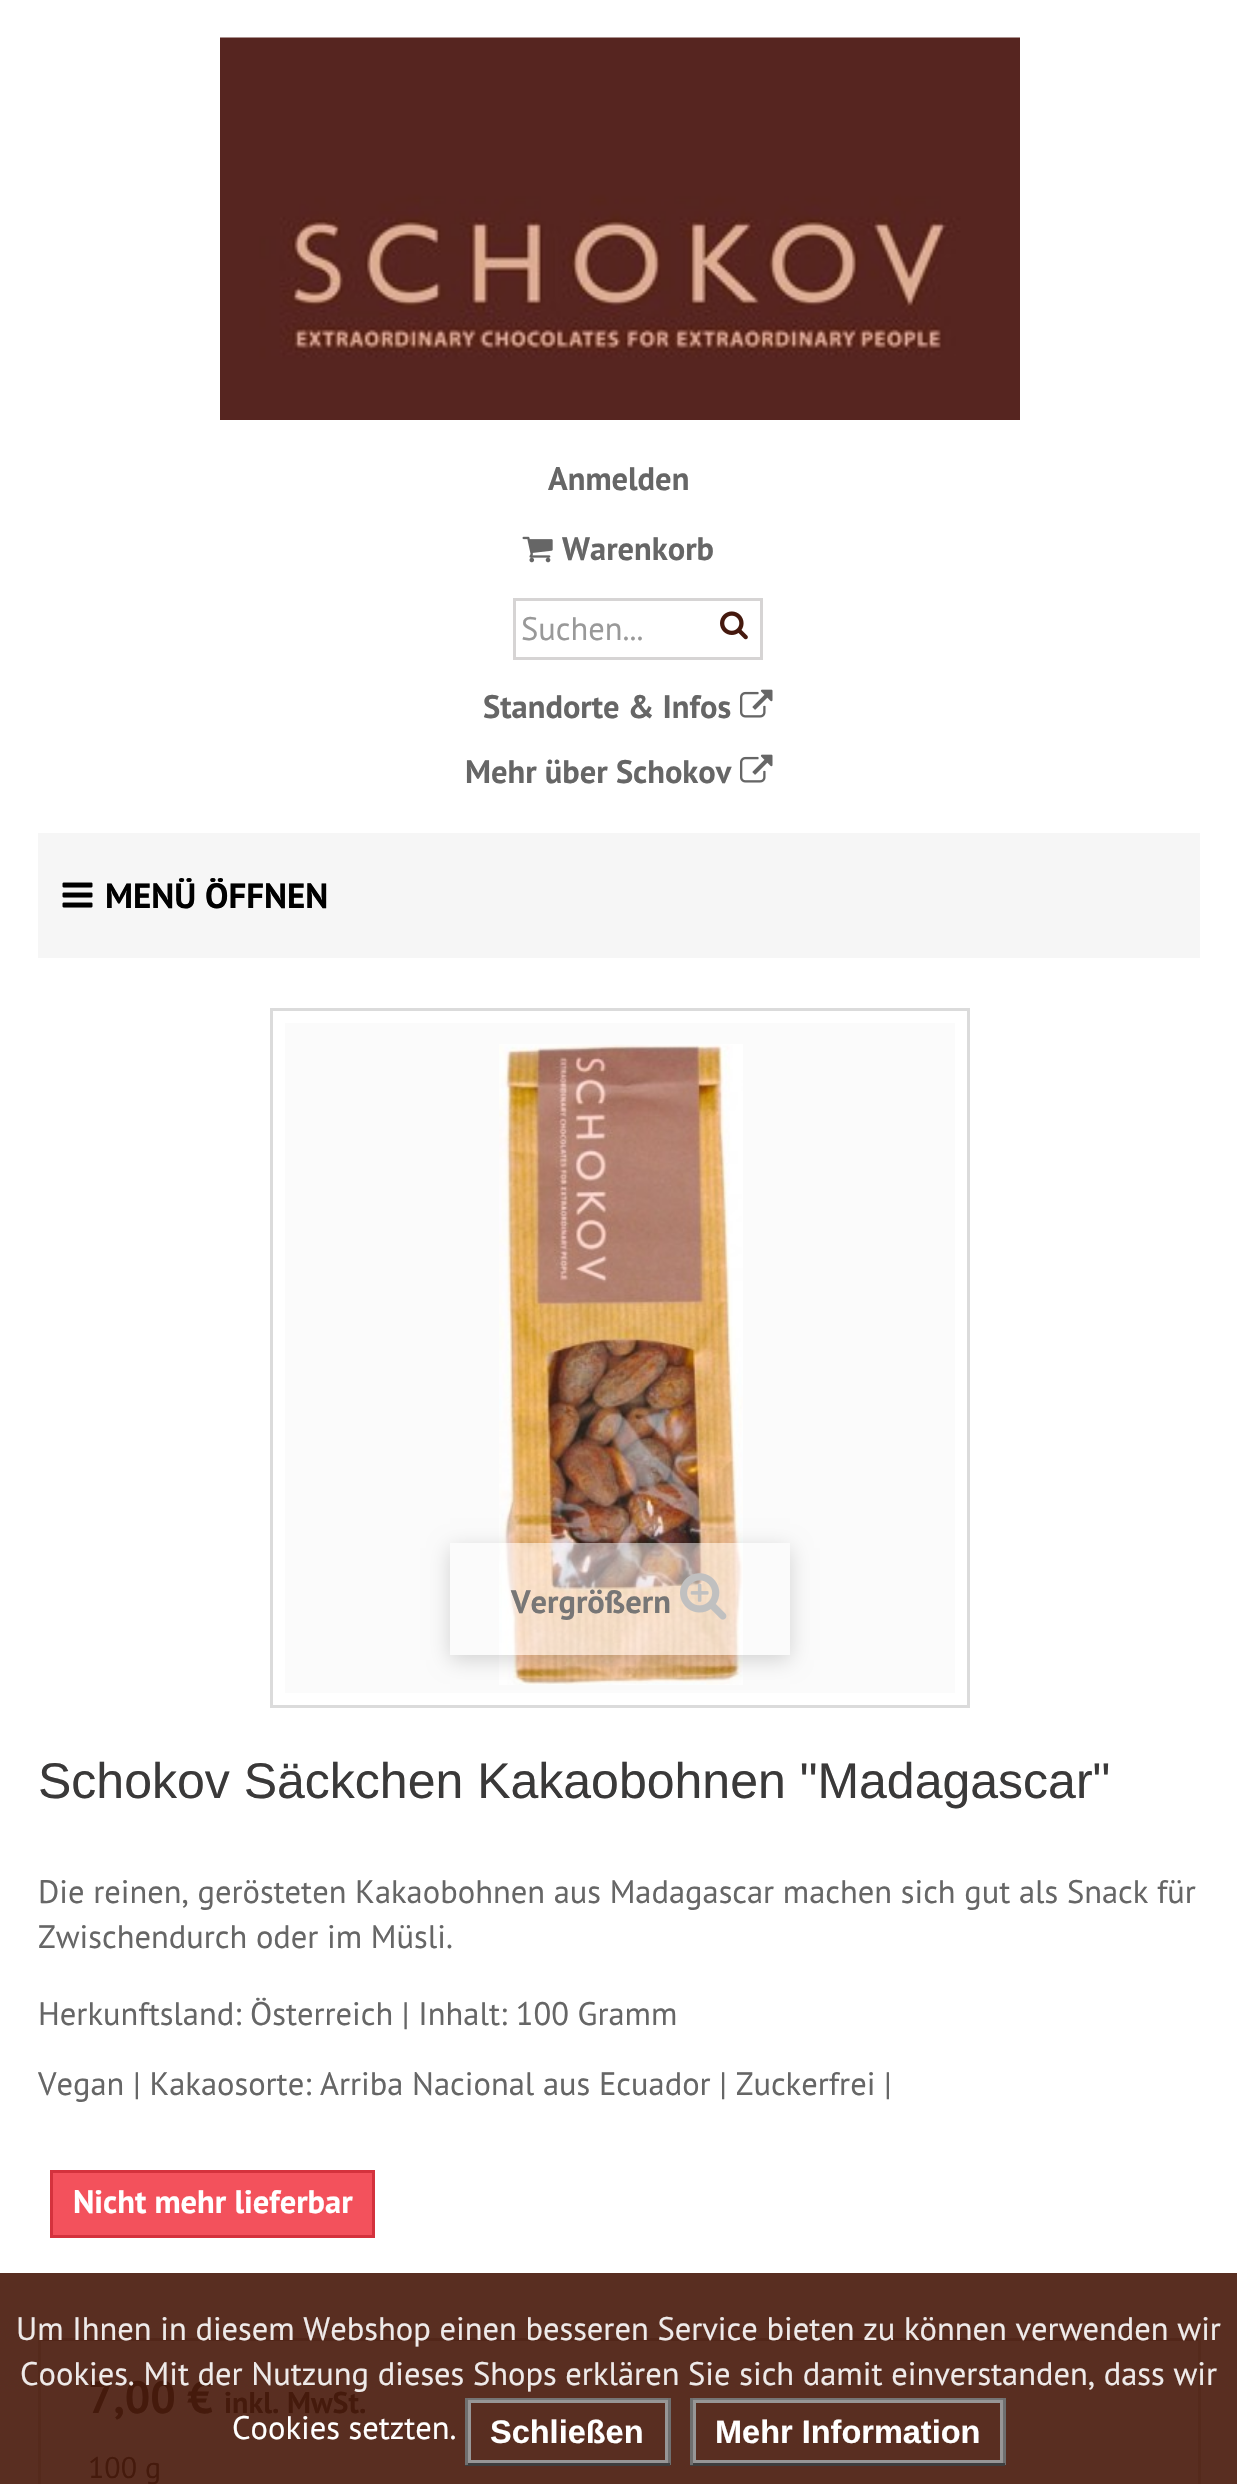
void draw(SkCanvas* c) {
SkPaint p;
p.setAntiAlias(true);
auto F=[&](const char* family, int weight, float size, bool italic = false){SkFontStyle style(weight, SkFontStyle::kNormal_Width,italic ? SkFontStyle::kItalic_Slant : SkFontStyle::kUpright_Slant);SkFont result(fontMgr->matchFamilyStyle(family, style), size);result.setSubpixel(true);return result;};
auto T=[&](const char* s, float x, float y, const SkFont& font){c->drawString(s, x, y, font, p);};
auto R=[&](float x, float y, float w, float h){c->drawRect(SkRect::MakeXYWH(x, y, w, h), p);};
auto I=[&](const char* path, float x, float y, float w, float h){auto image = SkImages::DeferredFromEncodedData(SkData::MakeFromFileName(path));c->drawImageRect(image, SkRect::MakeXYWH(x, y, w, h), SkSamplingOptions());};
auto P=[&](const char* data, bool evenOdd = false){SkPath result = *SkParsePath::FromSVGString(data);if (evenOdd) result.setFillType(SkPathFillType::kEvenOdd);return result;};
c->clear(0xffffffff);
p.setColor(0xff592e21);
R(0,2273,1237,211);
I("1.png",220,37,800,383);
auto f1 = F("PT Sans",700,32.5);
p.setColor(0xff666666);
T("Anmelden",548,490,f1);
I("2.png",522,536,31,27);
T("Warenkorb",562,560,f1);
p.setStroke(true);
p.setStrokeWidth(3);
p.setColor(0xffd6d4d4);
c->drawRect(SkRect::MakeXYWH(514.5,599.5,247,59),p);
auto f2 = F("PT Sans",400,32.5);
p.setStroke(false);
p.setColor(0xff999999);
T("Suchen...",521,640,f2);
I("3.png",720,611,28,29);
p.setColor(0xff666666);
T("Standorte & Infos",483,718,f1);
I("4.png",740,689,33,29);
T("Mehr über Schokov",465,783,f1);
I("4.png",740,754,33,29);
p.setColor(0xfff6f6f6);
R(38,833,1162,125);
I("5.png",62,882,31,26);
auto f3 = F("PT Sans",700,35);
p.setColor(0xff000000);
T("MENÜ ÖFFNEN",105,908,f3);
p.setStroke(true);
p.setColor(0xffdbdbdb);
c->drawRect(SkRect::MakeXYWH(271.5,1009.5,697,697),p);
p.setStroke(false);
p.setColor(0xfffbfbfb);
R(285,1023,670,670);
I("6.png",499,1044,244,641);
c->save();
c->clipPath(P("M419 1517h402v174h-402zm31 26h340v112h-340z",true),true);
p.setColor(0x29000000);
p.setMaskFilter(SkMaskFilter::MakeBlur(kNormal_SkBlurStyle, 10));
c->drawRect(SkRect::MakeXYWH(450,1548,340,112),p);
p.setMaskFilter(nullptr);
c->restore();
p.setColor(0x80ffffff);
R(502,1543,241,112);
p.setColor(0xff777676);
T("Vergrößern",511,1613,f1);
I("7.png",680,1573,47,47);
auto f4 = F("Liberation Sans",400,50);
p.setColor(0xff3a3939);
T("Schokov Säckchen Kakaobohnen \"Madagascar\"",38,1798,f4);
p.setColor(0xff666666);
T("Die reinen, gerösteten Kakaobohnen aus Madagascar machen sich gut als Snack für",38,1903,f2);
T("Zwischendurch oder im Müsli.",38,1948,f2);
T("Herkunftsland: Österreich | Inhalt: 100 Gramm",38,2025,f2);
T("Vegan | Kakaosorte: Arriba Nacional aus Ecuador | Zuckerfrei |",38,2095,f2);
p.setColor(0xfff3515c);
c->drawRect(SkRect::MakeXYWH(51.5,2171.5,322,65),p);
p.setStroke(true);
p.setColor(0xffd4323d);
c->drawRect(SkRect::MakeXYWH(51.5,2171.5,322,65),p);
p.setStroke(false);
p.setColor(0xffffffff);
T("Nicht mehr lieferbar",73,2213,f1);
p.setColor(0xff522619);
R(38,2338,1162,3);
p.setColor(0xff552a1c);
R(1198,2338,3,146);
R(38,2338,3,146);
auto f5 = F("PT Sans",700,45);
p.setColor(0xff451a0c);
T("7,00 €",88,2413,f5);
auto f6 = F("PT Sans",700,30);
T("inkl. MwSt.",224,2413,f6);
auto f7 = F("PT Sans",400,30);
T("100 g",88,2478,f7);
p.setColor(0xffeeeae9);
T("Um Ihnen in diesem Webshop einen besseren Service bieten zu können verwenden wir",16,2340,f2);
T("Cookies. Mit der Nutzung dieses Shops erklären Sie sich damit einverstanden, dass wir",20,2385,f2);
p.setColor(0xffffffff);
T("Cookies setzten.",232,2439,f2);
p.setColor(0xff757575);
R(465,2398,205,2);
p.setColor(0xff6f6f6f);
R(668,2398,3,67);
p.setColor(0xff3e3e3e);
R(465,2463,205,3);
p.setColor(0xff6f6f6f);
R(465,2398,3,67);
p.setStroke(true);
p.setColor(0xff979696);
c->drawRect(SkRect::MakeXYWH(469.5,2401.5,197,60),p);
auto f8 = F("Liberation Sans",700,32.5);
p.setStroke(false);
p.setColor(0xffffffff);
T("Schließen",490,2443,f8);
p.setColor(0xff757575);
R(690,2398,315,2);
p.setColor(0xff6f6f6f);
R(1003,2398,3,67);
p.setColor(0xff3e3e3e);
R(690,2463,315,3);
p.setColor(0xff6f6f6f);
R(690,2398,3,67);
p.setStroke(true);
p.setColor(0xff979696);
c->drawRect(SkRect::MakeXYWH(694.5,2401.5,307,60),p);
p.setStroke(false);
p.setColor(0xffffffff);
T("Mehr Information",715,2443,f8);
}
